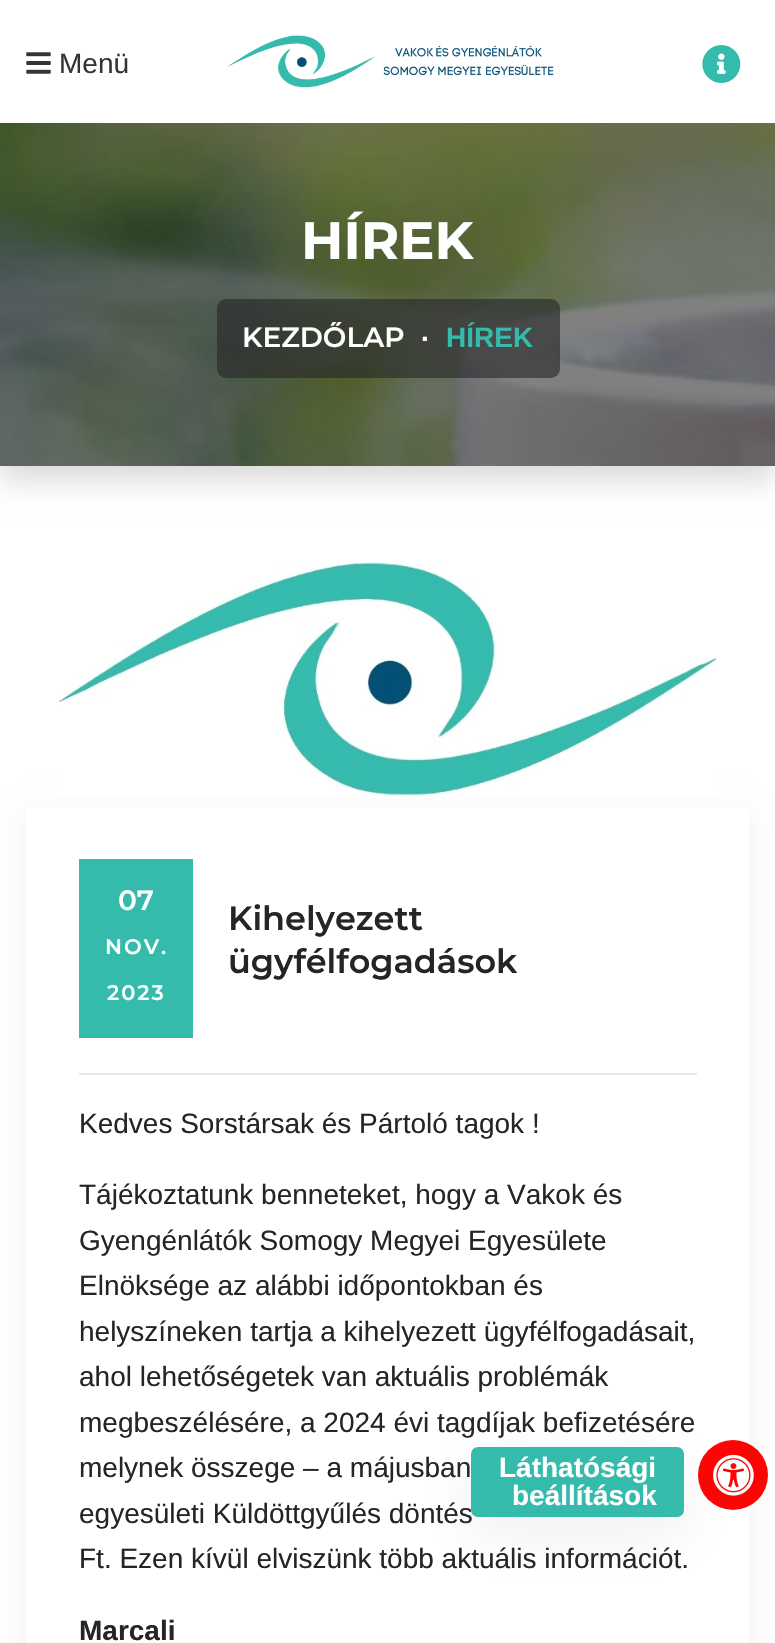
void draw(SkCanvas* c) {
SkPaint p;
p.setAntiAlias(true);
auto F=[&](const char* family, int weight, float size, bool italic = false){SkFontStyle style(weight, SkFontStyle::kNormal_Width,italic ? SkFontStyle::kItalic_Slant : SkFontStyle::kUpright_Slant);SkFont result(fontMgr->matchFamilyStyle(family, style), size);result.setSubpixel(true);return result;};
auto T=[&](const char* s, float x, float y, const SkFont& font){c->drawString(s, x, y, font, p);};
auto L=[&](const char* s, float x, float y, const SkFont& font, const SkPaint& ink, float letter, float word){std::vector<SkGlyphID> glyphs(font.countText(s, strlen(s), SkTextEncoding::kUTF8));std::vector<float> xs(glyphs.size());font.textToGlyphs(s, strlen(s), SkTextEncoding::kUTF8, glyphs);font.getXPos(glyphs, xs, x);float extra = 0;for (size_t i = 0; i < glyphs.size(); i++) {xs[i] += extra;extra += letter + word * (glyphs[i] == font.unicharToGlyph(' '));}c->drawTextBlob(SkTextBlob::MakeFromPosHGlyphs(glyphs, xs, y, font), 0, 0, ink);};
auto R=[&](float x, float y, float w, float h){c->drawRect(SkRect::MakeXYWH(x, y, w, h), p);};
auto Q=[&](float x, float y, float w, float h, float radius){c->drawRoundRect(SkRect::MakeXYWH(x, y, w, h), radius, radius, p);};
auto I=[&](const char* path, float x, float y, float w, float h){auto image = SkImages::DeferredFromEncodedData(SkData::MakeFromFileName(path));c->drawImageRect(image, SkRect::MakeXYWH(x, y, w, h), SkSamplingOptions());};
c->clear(0xffffffff);
p.setColor(0x26030303);
p.setMaskFilter(SkMaskFilter::MakeBlur(kNormal_SkBlurStyle, 14));
c->drawRect(SkRect::MakeXYWH(0,137,775,343),p);
p.setMaskFilter(nullptr);
I("4.png",0,123,775,343);
p.setColor(0x0a030303);
p.setMaskFilter(SkMaskFilter::MakeBlur(kNormal_SkBlurStyle, 22));
c->drawRect(SkRect::MakeXYWH(0,14,775,123),p);
p.setMaskFilter(nullptr);
p.setColor(0xffffffff);
R(0,0,775,123);
I("1.png",26,52,25,22);
auto f1 = F("Liberation Sans",400,28);
p.setColor(0xff353535);
T("Menü",59,73,f1);
I("2.png",227,35,327,53);
I("3.png",702,45,39,38);
auto f2 = F("Montserrat",700,52.5);
p.setColor(0xffffffff);
T("HÍREK",301,259,f2);
p.setColor(0x99252525);
Q(217,299,343,79,9);
auto f3 = F("Montserrat",600,28);
p.setColor(0xffffffff);
T("KEZDŐLAP",242,347,f3);
auto f4 = F("Liberation Sans",700,28);
T(".",421,341,f4);
p.setColor(0xff35bbac);
T("HÍREK",446,347,f4);
p.setColor(0x0f030303);
p.setMaskFilter(SkMaskFilter::MakeBlur(kNormal_SkBlurStyle, 13));
c->drawRect(SkRect::MakeXYWH(26,814,723,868),p);
p.setMaskFilter(nullptr);
I("5.png",58,561,660,235);
p.setColor(0xffffffff);
R(26,807,723,836);
p.setColor(0xffe7e7e7);
R(79,1073,618,2);
p.setColor(0xff35bbac);
R(79,859,114,179);
p.setColor(0xffffffff);
T("07",118,910,f3);
auto f5 = F("Montserrat",600,21);
L("NOV.",105,954,f5,p,2,0);
L("2023",107,1000,f5,p,2,0);
auto f6 = F("Montserrat",600,33.5);
p.setColor(0xff252525);
T("Kihelyezett",228,930,f6);
T("ügyfélfogadások",228,973,f6);
T("Kedves Sorstársak és Pártoló tagok !",79,1133,f1);
T("Tájékoztatunk benneteket, hogy a Vakok és",79,1204,f1);
T("Gyengénlátók Somogy Megyei Egyesülete",79,1250,f1);
T("Elnöksége az alábbi időpontokban és",79,1295,f1);
T("helyszíneken tartja a kihelyezett ügyfélfogadásait,",79,1341,f1);
T("ahol lehetőségetek van aktuális problémák",79,1386,f1);
T("megbeszélésére, a 2024 évi tagdíjak befizetésére",79,1432,f1);
T("melynek összege – a májusban",79,1477,f1);
T("egyesületi Küldöttgyűlés döntés",79,1523,f1);
T("Ft. Ezen kívül elviszünk több aktuális információt.",79,1568,f1);
T("Marcali",79,1640,f4);
p.setColor(0xffff0303);
c->drawCircle(733,1475,35,p);
I("6.png",713,1454,41,42);
p.setColor(0x1a686868);
p.setMaskFilter(SkMaskFilter::MakeBlur(kNormal_SkBlurStyle, 26));
c->drawRoundRect(SkRect::MakeXYWH(471,1465,213,70),7,7,p);
p.setMaskFilter(nullptr);
p.setColor(0xff35bbac);
Q(471,1447,213,70,7);
p.setColor(0xffffffff);
T("Láthatósági",499,1477,f4);
T("beállítások",512,1505,f4);
}
